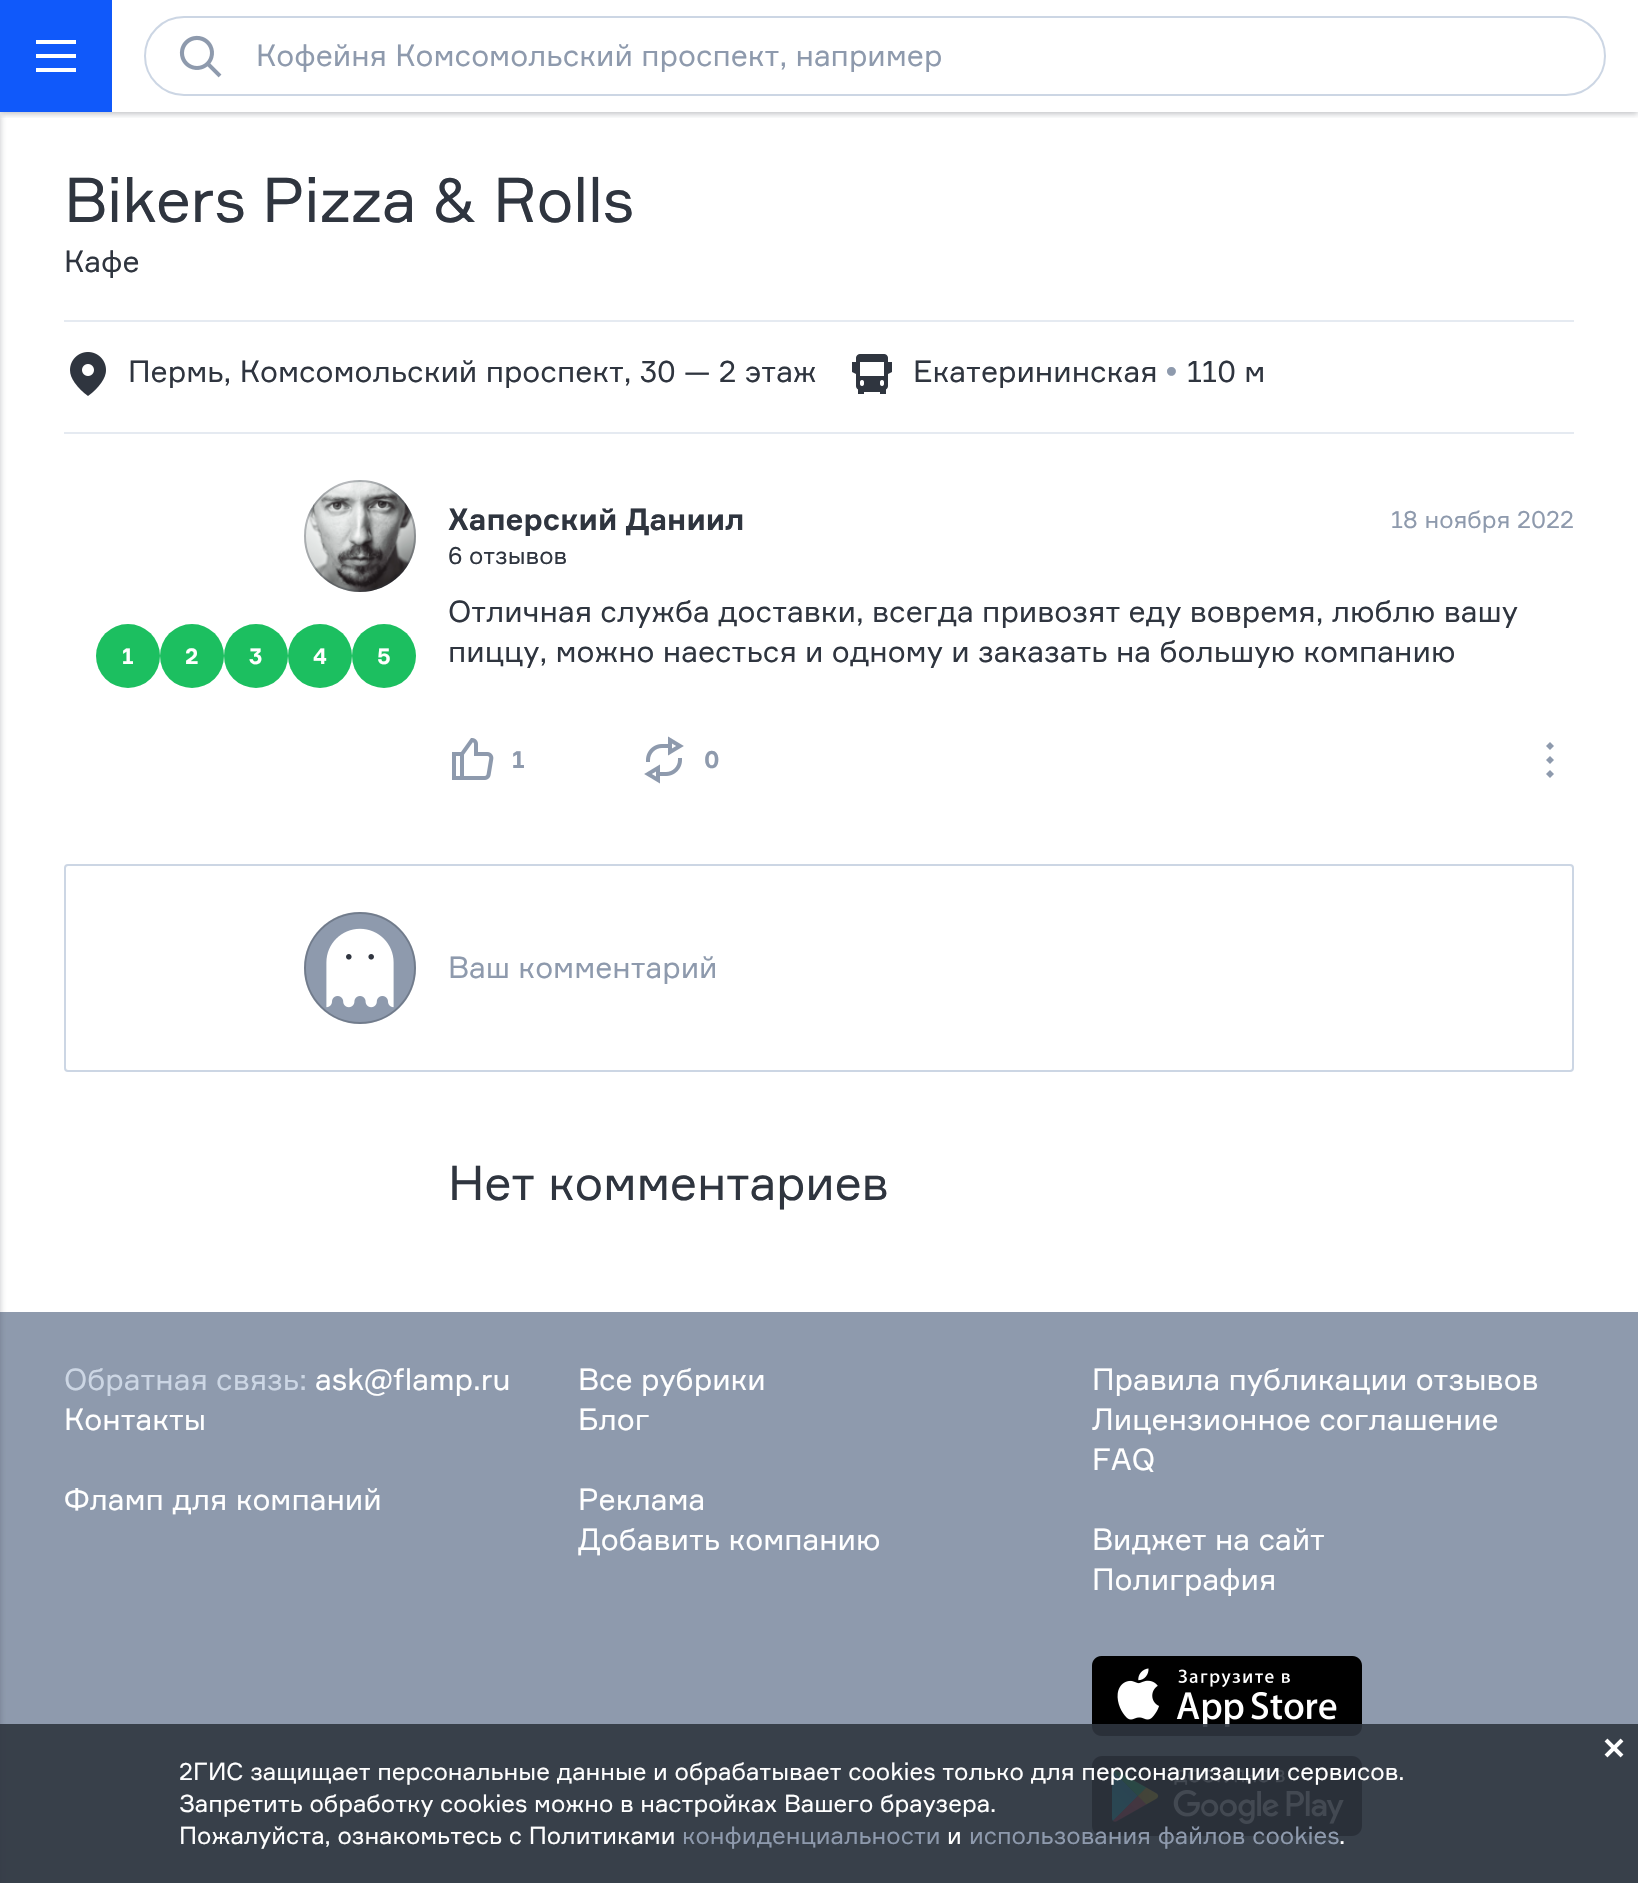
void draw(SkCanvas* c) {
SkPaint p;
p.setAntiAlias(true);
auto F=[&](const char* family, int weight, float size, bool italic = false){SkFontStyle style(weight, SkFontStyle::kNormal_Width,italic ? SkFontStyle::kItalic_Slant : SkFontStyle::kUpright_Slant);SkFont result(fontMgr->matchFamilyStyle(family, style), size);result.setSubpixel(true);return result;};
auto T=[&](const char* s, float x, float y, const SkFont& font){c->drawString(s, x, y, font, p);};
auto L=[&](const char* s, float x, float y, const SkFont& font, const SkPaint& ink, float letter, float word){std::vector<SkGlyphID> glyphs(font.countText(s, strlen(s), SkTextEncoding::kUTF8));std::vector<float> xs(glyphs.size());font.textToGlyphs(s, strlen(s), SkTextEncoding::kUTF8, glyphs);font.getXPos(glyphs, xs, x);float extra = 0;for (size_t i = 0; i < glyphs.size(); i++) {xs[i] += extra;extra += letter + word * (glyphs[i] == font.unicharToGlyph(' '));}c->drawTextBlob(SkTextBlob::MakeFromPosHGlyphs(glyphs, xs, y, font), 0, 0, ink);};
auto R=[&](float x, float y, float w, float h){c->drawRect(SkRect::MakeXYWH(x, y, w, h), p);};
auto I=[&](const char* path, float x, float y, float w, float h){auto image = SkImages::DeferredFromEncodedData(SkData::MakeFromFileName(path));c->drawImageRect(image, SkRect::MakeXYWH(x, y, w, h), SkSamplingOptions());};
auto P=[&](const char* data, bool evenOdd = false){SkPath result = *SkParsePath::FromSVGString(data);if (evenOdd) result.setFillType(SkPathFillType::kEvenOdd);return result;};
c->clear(0xffffffff);
p.setColor(0xff8e9aad);
R(0,1312,1638,571);
p.setColor(0x4d2f353f);
p.setMaskFilter(SkMaskFilter::MakeBlur(kNormal_SkBlurStyle, 3));
c->drawRect(SkRect::MakeXYWH(-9,114,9,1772),p);
p.setMaskFilter(nullptr);
c->save();
c->clipRect(SkRect::MakeXYWH(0,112,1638,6));
p.setMaskFilter(SkMaskFilter::MakeBlur(kNormal_SkBlurStyle, 3));
c->drawRect(SkRect::MakeXYWH(0,2,1638,112),p);
p.setMaskFilter(nullptr);
c->restore();
p.setColor(0xff1059fa);
R(0,0,112,112);
p.setColor(0xffffffff);
c->drawPath(P("M36 40h40v4h-40zm0 14h40v4h-40zm0 14h40v4h-40z"),p);
p.setStroke(true);
p.setStrokeWidth(2);
p.setColor(0xffccd6e4);
c->drawRoundRect(SkRect::MakeXYWH(145,17,1460,78),39,39,p);
I("1.png",179,35,43,43);
auto f1 = F("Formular",400,30);
p.setStroke(false);
p.setColor(0xff8e9aad);
T("Кофейня Комсомольский проспект, например",256,66,f1);
auto f2 = F("Formular",400,62);
p.setColor(0xff2f353f);
L("Bikers Pizza & Rolls",64,222,f2,p,-.6,0);
T("Кафе",64,272,f1);
p.setColor(0xffe5eaf1);
R(64,320,1510,2);
I("2.png",70,352,36,44);
p.setColor(0xff2f353f);
T("Пермь, Комсомольский проспект, 30 — 2 этаж",128,382,f1);
I("3.png",852,354,40,40);
T("Екатерининская",913,382,f1);
p.setColor(0xff8e9aad);
T("•",1165,382,f1);
p.setColor(0xff2f353f);
T("110 м",1187,382,f1);
p.setColor(0xffe5eaf1);
R(64,432,1510,2);
I("4.png",304,480,112,112);
p.setStroke(true);
p.setColor(0x4d2f353f);
c->drawCircle(360,536,55,p);
auto f3 = F("Formular",700,30);
p.setStroke(false);
p.setColor(0xff2f353f);
T("Хаперский Даниил",448,530,f3);
auto f4 = F("Formular",400,24);
p.setColor(0xff8e9aad);
T("18 ноября 2022",1391,528,f4);
p.setColor(0xff2f353f);
T("6 отзывов",448,564,f4);
p.setColor(0xff1cbf60);
c->drawCircle(128,656,32,p);
auto f5 = F("Formular",700,22);
p.setColor(0xffffffff);
T("1",122,664,f5);
p.setColor(0xff1cbf60);
c->drawCircle(192,656,32,p);
p.setColor(0xffffffff);
T("2",185,664,f5);
p.setColor(0xff1cbf60);
c->drawCircle(256,656,32,p);
p.setColor(0xffffffff);
T("3",249,664,f5);
p.setColor(0xff1cbf60);
c->drawCircle(320,656,32,p);
p.setColor(0xffffffff);
T("4",313,664,f5);
p.setColor(0xff1cbf60);
c->drawCircle(384,656,32,p);
p.setColor(0xffffffff);
T("5",377,664,f5);
p.setColor(0xff2f353f);
T("Отличная служба доставки, всегда привозят еду вовремя, люблю вашу",448,622,f1);
T("пиццу, можно наесться и одному и заказать на большую компанию",448,662,f1);
I("5.png",452,738,42,42);
auto f6 = F("Formular",700,24);
p.setColor(0xff8e9aad);
T("1",512,768,f6);
I("6.png",644,736,40,48);
T("0",704,768,f6);
c->drawPath(P("M1546 746l4-4l4 4l-4 4zm0 14l4-4l4 4l-4 4zm0 14l4-4l4 4l-4 4z"),p);
p.setStroke(true);
p.setColor(0xffccd6e4);
c->drawRoundRect(SkRect::MakeXYWH(65,865,1508,206),3,3,p);
I("7.png",304,912,112,112);
p.setColor(0x4d2f353f);
c->drawCircle(360,968,55,p);
p.setStroke(false);
p.setColor(0xff8e9aad);
T("Ваш комментарий",448,978,f1);
auto f7 = F("Formular",400,48);
p.setColor(0xff2f353f);
L("Нет комментариев",448,1200,f7,p,-.25,0);
p.setColor(0xffccd6e4);
T("Обратная связь:",64,1390,f1);
p.setColor(0xffffffff);
T("ask@flamp.ru",315,1390,f1);
T("Контакты",64,1430,f1);
T("Фламп для компаний",64,1510,f1);
T("Все рубрики",578,1390,f1);
T("Блог",578,1430,f1);
T("Реклама",578,1510,f1);
T("Добавить компанию",578,1550,f1);
T("Правила публикации отзывов",1092,1390,f1);
T("Лицензионное соглашение",1092,1430,f1);
T("FAQ",1092,1470,f1);
T("Виджет на сайт",1092,1550,f1);
T("Полиграфия",1092,1590,f1);
I("8.png",1092,1656,270,80);
I("9.png",1092,1756,270,80);
p.setColor(0xe62f353f);
R(0,1724,1638,159);
I("10.png",1604,1738,20,20);
p.setColor(0xffffffff);
T("2ГИС защищает персональные данные и обрабатывает cookies только для персонализации сервисов.",179,1780,f4);
T("Запретить обработку cookies можно в настройках Вашего браузера.",179,1812,f4);
T("Пожалуйста, ознакомьтесь с Политиками",179,1844,f4);
p.setColor(0xff8e9aad);
T("конфиденциальности",682,1844,f4);
p.setColor(0xffffffff);
T("и",947,1844,f4);
p.setColor(0xff8e9aad);
T("использования файлов cookies",969,1844,f4);
p.setColor(0xffffffff);
T(".",1339,1844,f4);
}
